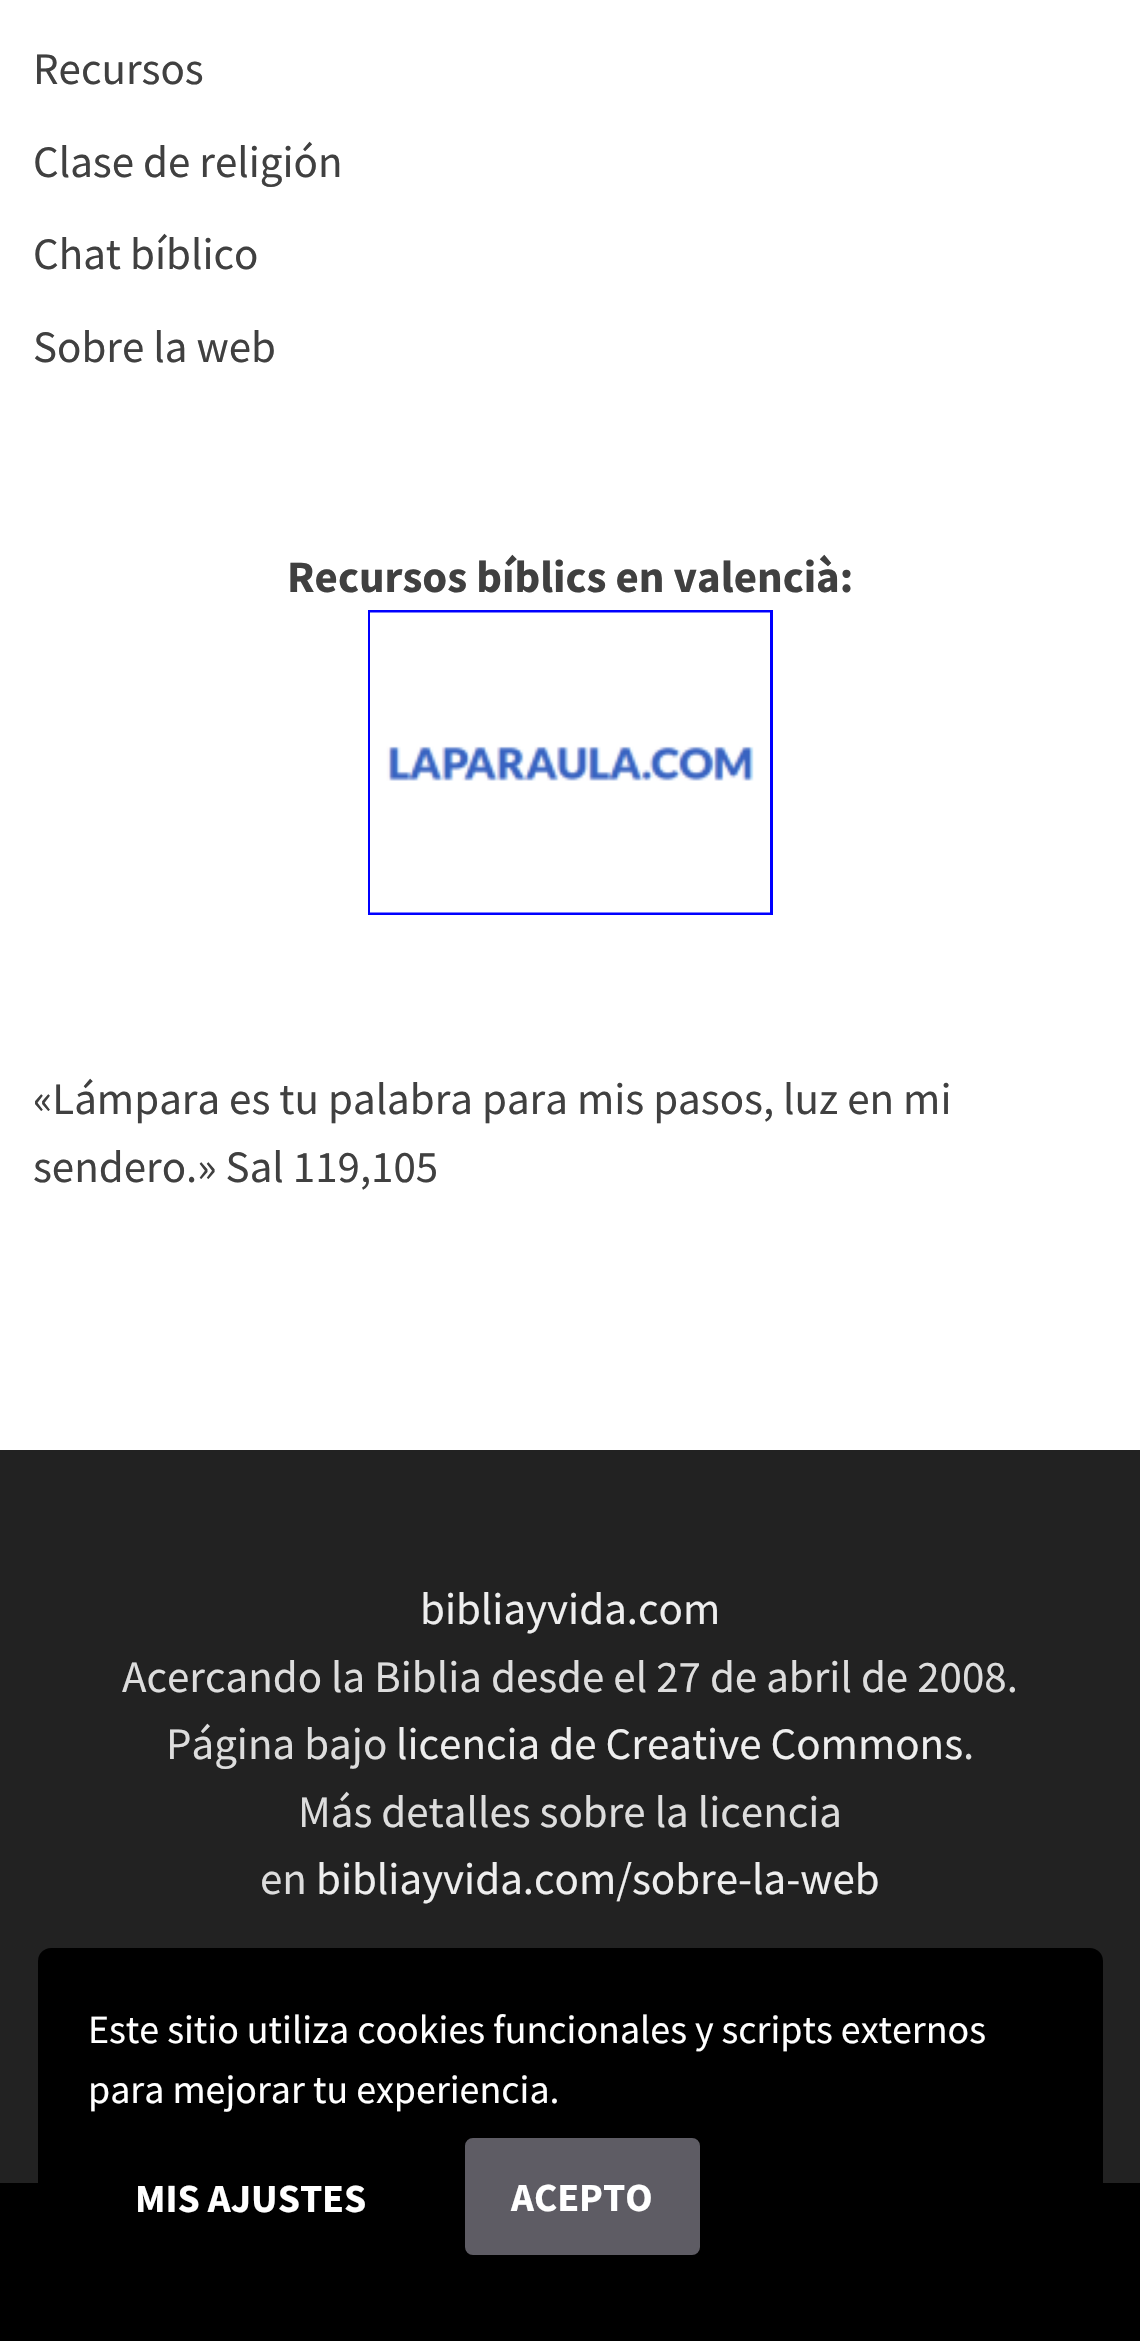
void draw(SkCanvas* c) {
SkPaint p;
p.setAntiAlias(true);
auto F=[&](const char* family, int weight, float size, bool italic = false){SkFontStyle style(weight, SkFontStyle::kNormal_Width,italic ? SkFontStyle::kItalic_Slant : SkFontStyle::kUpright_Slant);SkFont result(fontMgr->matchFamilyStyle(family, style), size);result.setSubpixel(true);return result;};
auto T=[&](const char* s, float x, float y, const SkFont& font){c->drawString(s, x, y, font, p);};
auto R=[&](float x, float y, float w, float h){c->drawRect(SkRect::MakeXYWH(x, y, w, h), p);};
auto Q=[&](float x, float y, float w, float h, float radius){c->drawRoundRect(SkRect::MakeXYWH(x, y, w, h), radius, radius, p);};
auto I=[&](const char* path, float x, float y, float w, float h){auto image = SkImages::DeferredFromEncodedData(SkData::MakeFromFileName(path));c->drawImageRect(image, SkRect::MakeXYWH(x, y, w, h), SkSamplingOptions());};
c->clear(0xffffffff);
auto f1 = F("Source Sans Pro",400,45);
p.setColor(0xff404040);
T("Recursos",33,84,f1);
T("Clase de religión",33,177,f1);
T("Chat bíblico",33,269,f1);
T("Sobre la web",33,362,f1);
auto f2 = F("Source Sans Pro",700,45);
T("Recursos bíblics en valencià:",287,592,f2);
p.setStroke(true);
p.setStrokeWidth(3);
p.setColor(0xff0000ff);
c->drawRect(SkRect::MakeXYWH(369.5,611.5,402,302),p);
I("1.png",370,612,400,301);
p.setStroke(false);
p.setColor(0xff404040);
T("«Lámpara es tu palabra para mis pasos, luz en mi",33,1114,f1);
T("sendero.» Sal 119,105",33,1182,f1);
p.setColor(0xff222222);
R(0,1450,1140,733);
p.setColor(0xffeeeeee);
T("bibliayvida.com",420,1624,f1);
p.setColor(0xffdddddd);
T("Acercando la Biblia desde el 27 de abril de 2008.",122,1692,f1);
T("Página bajo",166,1759,f1);
p.setColor(0xffeeeeee);
T("licencia de Creative Commons",396,1759,f1);
p.setColor(0xffdddddd);
T(".",963,1759,f1);
T("Más detalles sobre la licencia",298,1827,f1);
T("en",260,1894,f1);
p.setColor(0xffeeeeee);
T("bibliayvida.com/sobre-la-web",316,1894,f1);
p.setColor(0xff000000);
R(0,2183,1140,158);
Q(38,1948,1065,357,13);
auto f3 = F("Source Sans Pro",400,40);
p.setColor(0xffffffff);
T("Este sitio utiliza cookies funcionales y scripts externos",88,2043,f3);
T("para mejorar tu experiencia.",88,2103,f3);
auto f4 = F("Source Sans Pro",700,40);
T("MIS AJUSTES",135,2212,f4);
p.setColor(0xff5e5c64);
c->drawRoundRect(SkRect::MakeXYWH(466.5,2139.5,232,114),6.5,6.5,p);
p.setStroke(true);
c->drawRoundRect(SkRect::MakeXYWH(466.5,2139.5,232,114),6.5,6.5,p);
p.setStroke(false);
p.setColor(0xffffffff);
T("ACEPTO",511,2211,f4);
}
